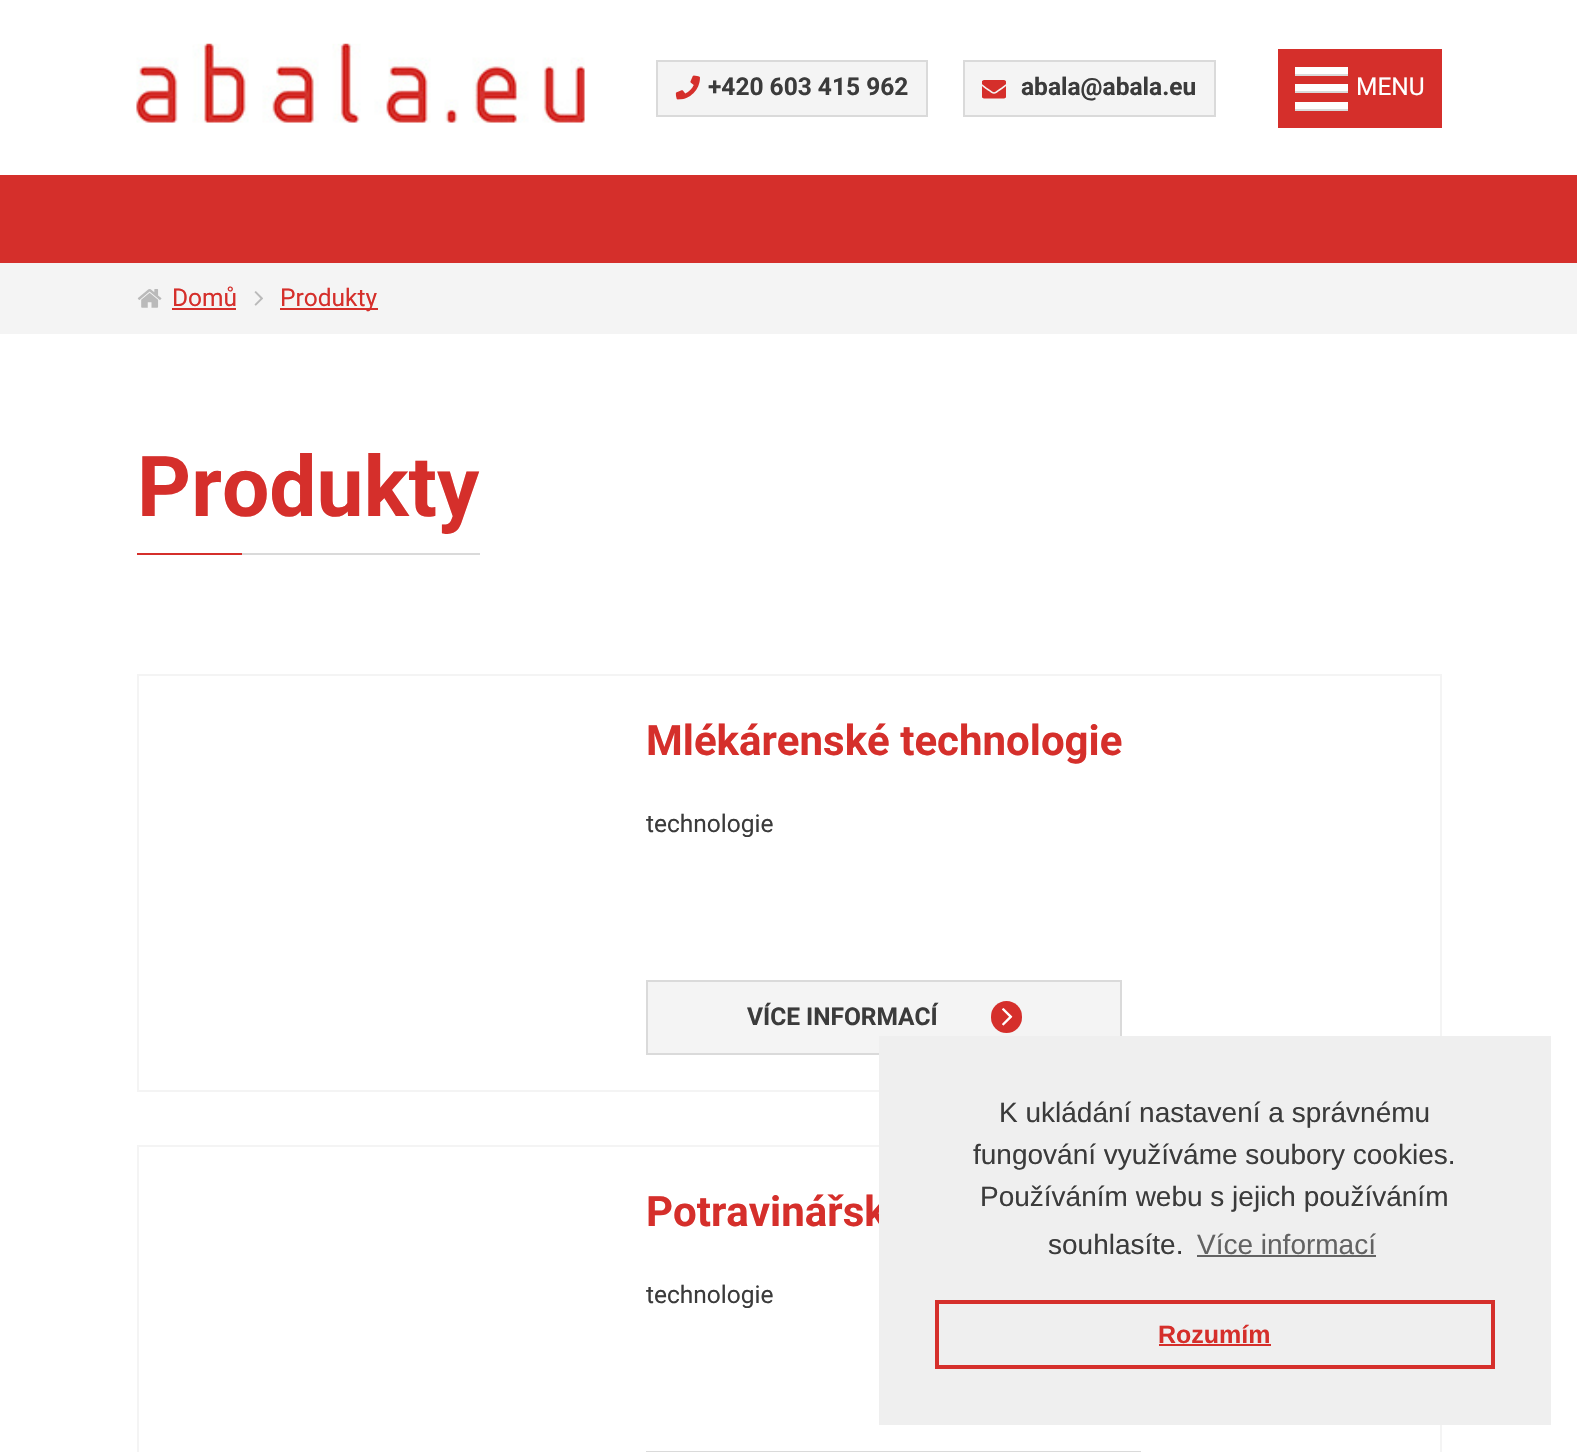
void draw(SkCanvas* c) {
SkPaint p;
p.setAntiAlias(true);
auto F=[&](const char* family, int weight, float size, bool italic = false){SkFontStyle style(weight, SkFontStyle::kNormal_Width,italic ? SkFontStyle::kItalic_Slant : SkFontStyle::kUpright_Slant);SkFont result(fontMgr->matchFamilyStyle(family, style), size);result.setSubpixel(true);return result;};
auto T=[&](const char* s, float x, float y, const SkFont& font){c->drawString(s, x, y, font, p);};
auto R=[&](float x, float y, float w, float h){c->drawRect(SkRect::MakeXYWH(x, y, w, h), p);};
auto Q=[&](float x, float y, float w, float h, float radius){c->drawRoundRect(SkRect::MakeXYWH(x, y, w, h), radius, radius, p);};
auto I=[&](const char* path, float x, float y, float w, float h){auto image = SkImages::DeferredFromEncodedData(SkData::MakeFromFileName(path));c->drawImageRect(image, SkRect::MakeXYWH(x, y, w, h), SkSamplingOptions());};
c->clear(0xffffffff);
I("1.png",136,43,449,80);
p.setColor(0xfff4f4f4);
c->drawRect(SkRect::MakeXYWH(657,61,270,55),p);
p.setStroke(true);
p.setStrokeWidth(2);
p.setColor(0xffdadada);
c->drawRect(SkRect::MakeXYWH(657,61,270,55),p);
I("2.png",675,75,25,25);
auto f1 = F("Roboto",700,24.5);
p.setStroke(false);
p.setColor(0xff3b3b3b);
T("+420 603 415 962",708,95,f1);
p.setColor(0xfff4f4f4);
c->drawRect(SkRect::MakeXYWH(964,61,251,55),p);
p.setStroke(true);
p.setColor(0xffdadada);
c->drawRect(SkRect::MakeXYWH(964,61,251,55),p);
I("3.png",982,80,24,19);
p.setStroke(false);
p.setColor(0xff3b3b3b);
T("abala@abala.eu",1021,95,f1);
p.setColor(0xffd52f2b);
R(1278,49,164,79);
p.setColor(0xffffffff);
R(1295,67,53,7);
p.setColor(0xffdadada);
R(1295,74,53,2);
p.setColor(0xffffffff);
R(1295,84,53,7);
p.setColor(0xffdadada);
R(1295,91,53,2);
p.setColor(0xffffffff);
R(1295,102,53,7);
p.setColor(0xffdadada);
R(1295,109,53,2);
auto f2 = F("Roboto",400,24.5);
p.setColor(0xffffffff);
T("MENU",1356,95,f2);
p.setColor(0xffd52f2b);
R(0,175,1577,88);
p.setColor(0xfff4f4f4);
R(0,263,1577,71);
I("4.png",137,289,25,19);
p.setColor(0xffd52f2b);
T("Domů",172,306,f2);
R(172,308,64,2);
I("5.png",254,291,9,15);
R(280,308,98,2);
T("Produkty",280,306,f2);
p.setColor(0xffdadada);
R(242,553,238,2);
auto f3 = F("Roboto",700,84);
p.setColor(0xffd52f2b);
T("Produkty",137,516,f3);
R(137,553,105,2);
p.setStroke(true);
p.setColor(0xfff4f4f4);
c->drawRect(SkRect::MakeXYWH(138,675,1303,416),p);
auto f4 = F("Roboto",700,42);
p.setStroke(false);
p.setColor(0xffd52f2b);
T("Mlékárenské technologie",646,755,f4);
p.setColor(0xff3b3b3b);
T("technologie",646,832,f2);
p.setColor(0xfff4f4f4);
c->drawRect(SkRect::MakeXYWH(647,981,474,73),p);
p.setStroke(true);
p.setColor(0xffdadada);
c->drawRect(SkRect::MakeXYWH(647,981,474,73),p);
p.setStroke(false);
p.setColor(0xff3b3b3b);
T("VÍCE INFORMACÍ",747,1025,f1);
p.setColor(0xffd52f2b);
Q(991,1001,31,32,15.5);
I("6.png",1002,1008,11,18);
p.setStroke(true);
p.setColor(0xfff4f4f4);
c->drawRect(SkRect::MakeXYWH(138,1146,1303,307),p);
p.setStroke(false);
p.setColor(0xffd52f2b);
T("Potravinářsk",646,1226,f4);
p.setColor(0xff3b3b3b);
T("technologie",646,1303,f2);
p.setStroke(true);
p.setColor(0xffdadada);
c->drawRect(SkRect::MakeXYWH(647,1452,493,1),p);
p.setStroke(false);
p.setColor(0xffefefef);
R(879,1036,672,389);
auto f5 = F("Liberation Sans",400,28);
p.setColor(0xff3b3b3b);
T("K ukládání nastavení a správnému",999,1122,f5);
T("fungování využíváme soubory cookies.",973,1164,f5);
T("Používáním webu s jejich používáním",980,1206,f5);
T("souhlasíte.",1048,1254,f5);
p.setColor(0xff636363);
T("Více informací",1197,1254,f5);
R(1197,1255,179,2);
p.setStroke(true);
p.setStrokeWidth(4);
p.setColor(0xffd52f2b);
c->drawRect(SkRect::MakeXYWH(937,1302,556,65),p);
auto f6 = F("Liberation Sans",700,25);
p.setStroke(false);
T("Rozumím",1158,1343,f6);
R(1159,1344,112,2);
}
